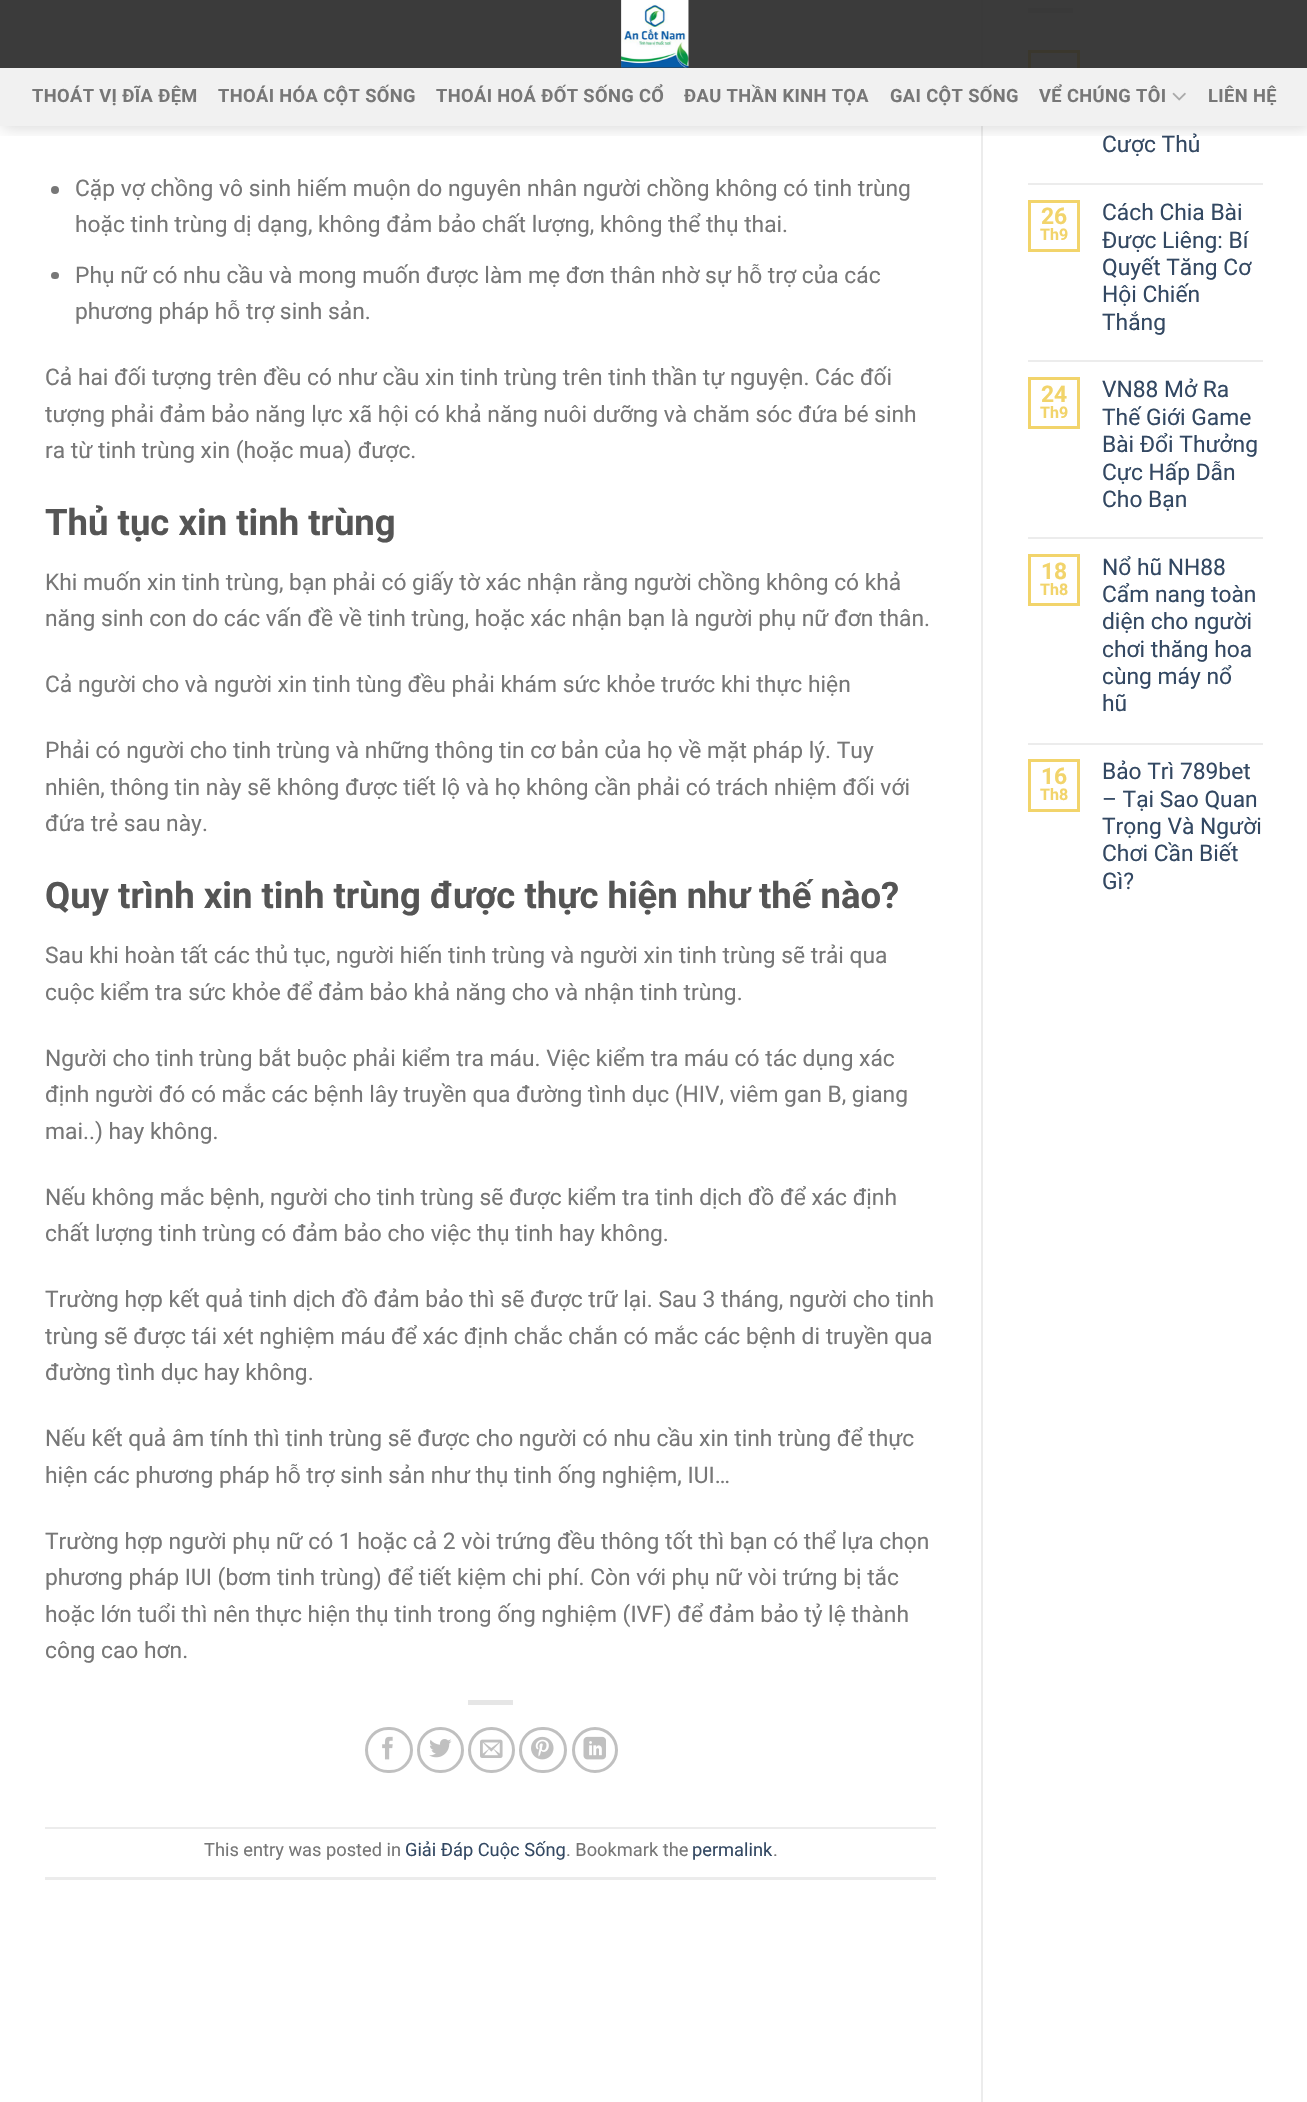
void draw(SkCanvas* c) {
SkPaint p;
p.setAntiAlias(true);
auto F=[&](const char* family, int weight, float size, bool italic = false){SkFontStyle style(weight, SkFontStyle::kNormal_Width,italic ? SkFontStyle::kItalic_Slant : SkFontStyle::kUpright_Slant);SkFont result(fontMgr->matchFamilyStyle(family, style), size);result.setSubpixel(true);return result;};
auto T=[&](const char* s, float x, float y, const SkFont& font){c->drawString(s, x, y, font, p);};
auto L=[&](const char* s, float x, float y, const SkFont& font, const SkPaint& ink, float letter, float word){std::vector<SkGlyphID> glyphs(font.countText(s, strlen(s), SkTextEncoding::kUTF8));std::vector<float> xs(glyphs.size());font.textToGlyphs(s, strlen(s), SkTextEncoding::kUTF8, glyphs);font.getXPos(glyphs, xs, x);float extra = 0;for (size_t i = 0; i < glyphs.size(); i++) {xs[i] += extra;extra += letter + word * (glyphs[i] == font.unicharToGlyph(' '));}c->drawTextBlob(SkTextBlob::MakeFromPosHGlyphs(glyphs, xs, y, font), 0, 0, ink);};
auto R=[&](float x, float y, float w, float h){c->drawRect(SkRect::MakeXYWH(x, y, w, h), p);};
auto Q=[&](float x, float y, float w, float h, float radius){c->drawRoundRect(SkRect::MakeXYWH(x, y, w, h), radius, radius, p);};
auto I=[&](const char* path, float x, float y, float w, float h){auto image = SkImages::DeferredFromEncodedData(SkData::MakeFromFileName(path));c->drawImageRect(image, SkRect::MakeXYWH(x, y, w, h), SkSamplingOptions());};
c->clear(0xffffffff);
p.setColor(0xffececec);
R(981,0,2,2102);
p.setColor(0xffe6e6e6);
R(1028,8,45,5);
p.setStroke(true);
p.setStrokeWidth(3);
p.setColor(0xfff2d46b);
c->drawRect(SkRect::MakeXYWH(1029.5,51.5,49,49),p);
c->save();
c->clipRect(SkRect::MakeXYWH(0,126,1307,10));
p.setStroke(false);
p.setColor(0x26000000);
p.setMaskFilter(SkMaskFilter::MakeBlur(kNormal_SkBlurStyle, 7.5));
c->drawRect(SkRect::MakeXYWH(2,2,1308,126),p);
p.setMaskFilter(nullptr);
c->restore();
p.setColor(0xe6262626);
R(0,0,1307,68);
I("1.png",621,0,68,68);
p.setColor(0xfff1f1f1);
R(0,68,1307,58);
auto f1 = F("Roboto",700,18.25);
p.setColor(0xff777777);
L("THOÁT VỊ ĐĨA ĐỆM",32,102,f1,p,.4,0);
L("THOÁI HÓA CỘT SỐNG",218,102,f1,p,.4,0);
L("THOÁI HOÁ ĐỐT SỐNG CỔ",436,102,f1,p,.4,0);
L("ĐAU THẦN KINH TỌA",684,102,f1,p,.4,0);
L("GAI CỘT SỐNG",890,102,f1,p,.4,0);
L("VỂ CHÚNG TÔI",1039,102,f1,p,.4,0);
I("2.png",1172,92,14,9);
L("LIÊN HỆ",1208,102,f1,p,.4,0);
c->drawCircle(55,190,4,p);
auto f2 = F("Roboto",400,22.8);
T("Cặp vợ chồng vô sinh hiếm muộn do nguyên nhân người chồng không có tinh trùng",75,196,f2);
T("hoặc tinh trùng dị dạng, không đảm bảo chất lượng, không thể thụ thai.",75,232,f2);
Q(51,272,8,7,3.5);
T("Phụ nữ có nhu cầu và mong muốn được làm mẹ đơn thân nhờ sự hỗ trợ của các",75,283,f2);
T("phương pháp hỗ trợ sinh sản.",75,319,f2);
T("Cả hai đối tượng trên đều có như cầu xin tinh trùng trên tinh thần tự nguyện. Các đối",45,385,f2);
T("tượng phải đảm bảo năng lực xã hội có khả năng nuôi dưỡng và chăm sóc đứa bé sinh",45,422,f2);
T("ra từ tinh trùng xin (hoặc mua) được.",45,458,f2);
auto f3 = F("Roboto",700,36.5);
p.setColor(0xff555555);
T("Thủ tục xin tinh trùng",45,535,f3);
p.setColor(0xff777777);
T("Khi muốn xin tinh trùng, bạn phải có giấy tờ xác nhận rằng người chồng không có khả",45,590,f2);
T("năng sinh con do các vấn đề về tinh trùng, hoặc xác nhận bạn là người phụ nữ đơn thân.",45,626,f2);
T("Cả người cho và người xin tinh tùng đều phải khám sức khỏe trước khi thực hiện",45,692,f2);
T("Phải có người cho tinh trùng và những thông tin cơ bản của họ về mặt pháp lý. Tuy",45,758,f2);
T("nhiên, thông tin này sẽ không được tiết lộ và họ không cần phải có trách nhiệm đối với",45,795,f2);
T("đứa trẻ sau này.",45,831,f2);
p.setColor(0xff555555);
T("Quy trình xin tinh trùng được thực hiện như thế nào?",45,908,f3);
p.setColor(0xff777777);
T("Sau khi hoàn tất các thủ tục, người hiến tinh trùng và người xin tinh trùng sẽ trải qua",45,963,f2);
T("cuộc kiểm tra sức khỏe để đảm bảo khả năng cho và nhận tinh trùng.",45,1000,f2);
T("Người cho tinh trùng bắt buộc phải kiểm tra máu. Việc kiểm tra máu có tác dụng xác",45,1066,f2);
T("định người đó có mắc các bệnh lây truyền qua đường tình dục (HIV, viêm gan B, giang",45,1102,f2);
T("mai..) hay không.",45,1139,f2);
T("Nếu không mắc bệnh, người cho tinh trùng sẽ được kiểm tra tinh dịch đồ để xác định",45,1205,f2);
T("chất lượng tinh trùng có đảm bảo cho việc thụ tinh hay không.",45,1241,f2);
T("Trường hợp kết quả tinh dịch đồ đảm bảo thì sẽ được trữ lại. Sau 3 tháng, người cho tinh",45,1307,f2);
T("trùng sẽ được tái xét nghiệm máu để xác định chắc chắn có mắc các bệnh di truyền qua",45,1344,f2);
T("đường tình dục hay không.",45,1380,f2);
T("Nếu kết quả âm tính thì tinh trùng sẽ được cho người có nhu cầu xin tinh trùng để thực",45,1446,f2);
T("hiện các phương pháp hỗ trợ sinh sản như thụ tinh ống nghiệm, IUI…",45,1483,f2);
T("Trường hợp người phụ nữ có 1 hoặc cả 2 vòi trứng đều thông tốt thì bạn có thể lựa chọn",45,1549,f2);
T("phương pháp IUI (bơm tinh trùng) để tiết kiệm chi phí. Còn với phụ nữ vòi trứng bị tắc",45,1585,f2);
T("hoặc lớn tuổi thì nên thực hiện thụ tinh trong ống nghiệm (IVF) để đảm bảo tỷ lệ thành",45,1622,f2);
T("công cao hơn.",45,1658,f2);
p.setColor(0xffe6e6e6);
R(468,1700,45,5);
p.setStroke(true);
p.setColor(0xffc0c0c0);
c->drawRoundRect(SkRect::MakeXYWH(366.5,1728.5,45,43),21.5,21.5,p);
I("3.png",382,1736,11,24);
c->drawRoundRect(SkRect::MakeXYWH(418.5,1728.5,44,43),21.5,21.5,p);
I("4.png",429,1739,23,19);
c->drawRoundRect(SkRect::MakeXYWH(469.5,1728.5,44,43),21.5,21.5,p);
I("5.png",480,1739,23,19);
c->drawRoundRect(SkRect::MakeXYWH(520.5,1728.5,45,43),21.5,21.5,p);
I("6.png",531,1736,23,24);
c->drawCircle(595,1750,21.5,p);
I("7.png",583,1736,23,24);
p.setStroke(false);
p.setColor(0xffececec);
R(45,1827,891,2);
R(45,1877,891,3);
auto f4 = F("Roboto",400,18.25);
p.setColor(0xff777777);
T("This entry was posted in",204,1856,f4);
p.setColor(0xff334862);
T("Giải Đáp Cuộc Sống",405,1856,f4);
p.setColor(0xff777777);
T(". Bookmark the",566,1856,f4);
p.setColor(0xff334862);
T("permalink",692,1856,f4);
p.setColor(0xff777777);
T(".",773,1856,f4);
p.setColor(0xff334862);
T("Cược Thủ",1102,152,f2);
p.setColor(0xffececec);
R(1028,183,235,2);
p.setStroke(true);
p.setColor(0xfff2d46b);
c->drawRect(SkRect::MakeXYWH(1029.5,201.5,49,49),p);
auto f5 = F("Roboto",700,22.8);
p.setStroke(false);
T("26",1041,224,f5);
auto f6 = F("Roboto",700,16);
T("Th9",1040,240,f6);
p.setColor(0xff334862);
T("Cách Chia Bài",1102,220,f2);
T("Được Liêng: Bí",1102,248,f2);
T("Quyết Tăng Cơ",1102,275,f2);
T("Hội Chiến",1102,302,f2);
T("Thắng",1102,330,f2);
p.setColor(0xffececec);
R(1028,360,235,2);
p.setStroke(true);
p.setColor(0xfff2d46b);
c->drawRect(SkRect::MakeXYWH(1029.5,378.5,49,49),p);
p.setStroke(false);
T("24",1041,402,f5);
T("Th9",1040,418,f6);
p.setColor(0xff334862);
T("VN88 Mở Ra",1102,397,f2);
T("Thế Giới Game",1102,425,f2);
T("Bài Đổi Thưởng",1102,452,f2);
T("Cực Hấp Dẫn",1102,480,f2);
T("Cho Bạn",1102,507,f2);
p.setColor(0xffececec);
R(1028,537,235,2);
p.setStroke(true);
p.setColor(0xfff2d46b);
c->drawRect(SkRect::MakeXYWH(1029.5,555.5,49,49),p);
p.setStroke(false);
T("18",1041,579,f5);
T("Th8",1040,595,f6);
p.setColor(0xff334862);
T("Nổ hũ NH88",1102,575,f2);
T("Cẩm nang toàn",1102,602,f2);
T("diện cho người",1102,629,f2);
T("chơi thăng hoa",1102,657,f2);
T("cùng máy nổ",1102,684,f2);
T("hũ",1102,711,f2);
p.setColor(0xffececec);
R(1028,743,235,2);
p.setStroke(true);
p.setColor(0xfff2d46b);
c->drawRect(SkRect::MakeXYWH(1029.5,760.5,49,50),p);
p.setStroke(false);
T("16",1041,784,f5);
T("Th8",1040,800,f6);
p.setColor(0xff334862);
T("Bảo Trì 789bet",1102,779,f2);
T("– Tại Sao Quan",1102,807,f2);
T("Trọng Và Người",1102,834,f2);
T("Chơi Cần Biết",1102,861,f2);
T("Gì?",1102,889,f2);
}
